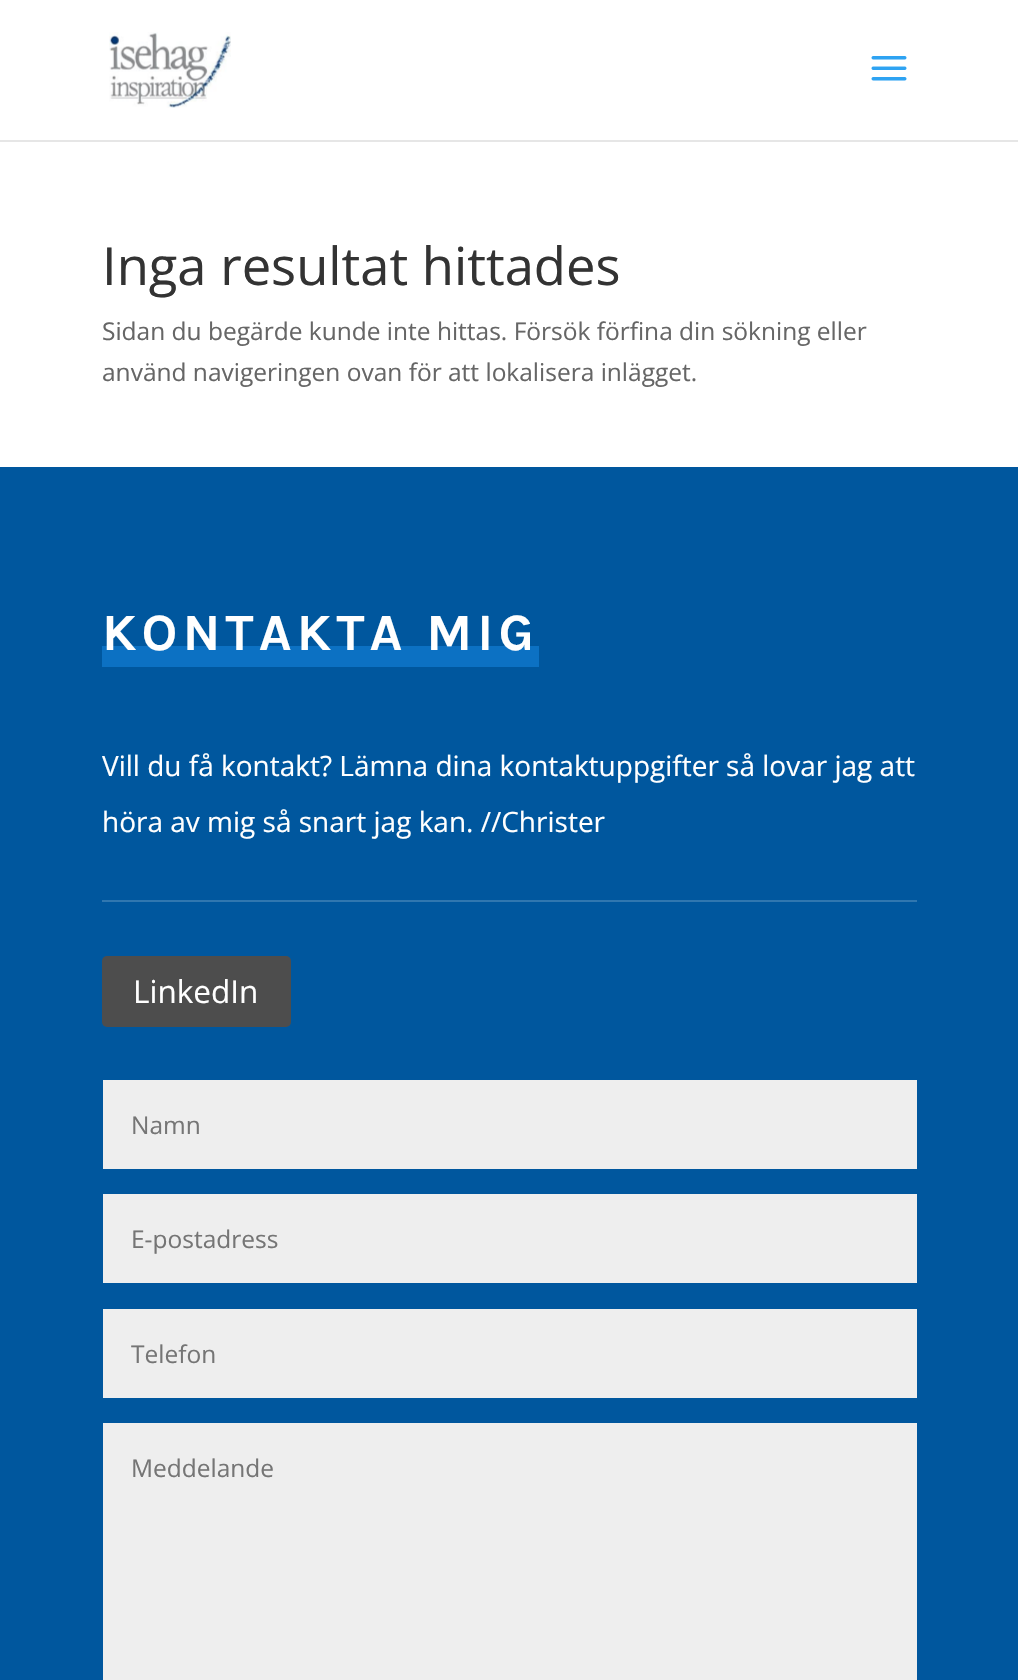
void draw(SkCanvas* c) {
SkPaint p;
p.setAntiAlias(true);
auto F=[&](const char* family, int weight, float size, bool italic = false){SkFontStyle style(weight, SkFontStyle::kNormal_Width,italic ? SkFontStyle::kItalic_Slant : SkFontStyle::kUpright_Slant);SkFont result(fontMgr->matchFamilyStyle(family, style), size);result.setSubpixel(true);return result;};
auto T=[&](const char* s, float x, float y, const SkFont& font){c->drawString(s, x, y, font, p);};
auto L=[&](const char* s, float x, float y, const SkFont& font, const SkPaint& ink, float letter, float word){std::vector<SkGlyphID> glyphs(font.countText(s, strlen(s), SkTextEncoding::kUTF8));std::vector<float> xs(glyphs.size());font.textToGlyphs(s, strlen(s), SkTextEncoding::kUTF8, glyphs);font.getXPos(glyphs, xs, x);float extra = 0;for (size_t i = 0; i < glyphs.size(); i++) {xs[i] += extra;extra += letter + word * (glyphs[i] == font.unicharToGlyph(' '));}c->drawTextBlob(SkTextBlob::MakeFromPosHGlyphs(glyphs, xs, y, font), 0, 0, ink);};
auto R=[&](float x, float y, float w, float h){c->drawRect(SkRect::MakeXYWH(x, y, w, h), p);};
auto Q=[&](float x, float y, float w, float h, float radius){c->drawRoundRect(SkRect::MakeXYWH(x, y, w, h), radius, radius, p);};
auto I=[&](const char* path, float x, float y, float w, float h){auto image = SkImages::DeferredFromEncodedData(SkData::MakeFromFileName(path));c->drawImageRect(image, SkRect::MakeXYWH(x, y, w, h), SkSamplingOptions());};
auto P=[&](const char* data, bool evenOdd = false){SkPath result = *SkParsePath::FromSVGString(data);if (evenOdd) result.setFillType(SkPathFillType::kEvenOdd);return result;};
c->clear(0xffffffff);
p.setColor(0xffe6e6e6);
c->drawPath(P("M0 140v2h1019v-140h-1v138z"),p);
I("1.png",109,32,122,76);
I("2.png",871,56,36,25);
auto f1 = F("Open Sans",400,52.5);
p.setColor(0xff333333);
T("Inga resultat hittades",102,285,f1);
auto f2 = F("Open Sans",400,24.5);
p.setColor(0xff666666);
T("Sidan du begärde kunde inte hittas. Försök förfina din sökning eller",102,340,f2);
T("använd navigeringen ovan för att lokalisera inlägget.",102,381,f2);
p.setColor(0xff00579e);
R(0,467,1018,1213);
p.setColor(0xff0c71c3);
R(102,646,437,21);
auto f3 = F("Karla",700,52.5);
p.setColor(0xffffffff);
L("KONTAKTA MIG",102,650,f3,p,5.25,0);
auto f4 = F("Open Sans",400,28);
T("Vill du få kontakt? Lämna dina kontaktuppgifter så lovar jag att",102,776,f4);
T("höra av mig så snart jag kan. //Christer",102,832,f4);
p.setColor(0xff3077b0);
R(102,900,815,2);
p.setColor(0xff4d4d4d);
Q(102,956,189,71,5);
auto f5 = F("Open Sans",400,31.5);
p.setColor(0xffffffff);
T("LinkedIn",133,1003,f5);
p.setColor(0xffeeeeee);
R(103,1080,814,89);
p.setColor(0xff757575);
T("Namn",131,1134,f2);
p.setColor(0xffeeeeee);
R(103,1194,814,89);
p.setColor(0xff757575);
T("E-postadress",131,1248,f2);
p.setColor(0xffeeeeee);
R(103,1309,814,89);
c->save();
c->clipRect(SkRect::MakeXYWH(131,1337,758,33));
p.setColor(0xff757575);
T("Telefon",131,1363,f2);
c->restore();
p.setColor(0xffeeeeee);
R(103,1423,814,257);
p.setColor(0xff757575);
T("Meddelande",131,1477,f2);
}
